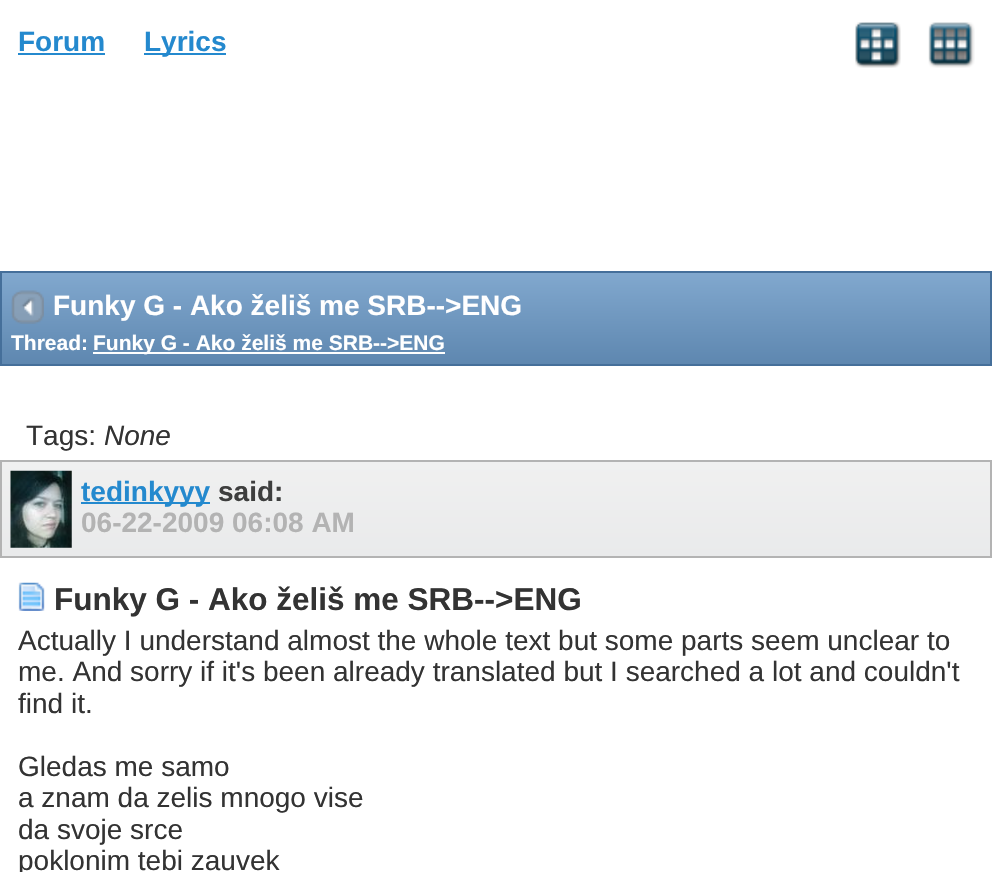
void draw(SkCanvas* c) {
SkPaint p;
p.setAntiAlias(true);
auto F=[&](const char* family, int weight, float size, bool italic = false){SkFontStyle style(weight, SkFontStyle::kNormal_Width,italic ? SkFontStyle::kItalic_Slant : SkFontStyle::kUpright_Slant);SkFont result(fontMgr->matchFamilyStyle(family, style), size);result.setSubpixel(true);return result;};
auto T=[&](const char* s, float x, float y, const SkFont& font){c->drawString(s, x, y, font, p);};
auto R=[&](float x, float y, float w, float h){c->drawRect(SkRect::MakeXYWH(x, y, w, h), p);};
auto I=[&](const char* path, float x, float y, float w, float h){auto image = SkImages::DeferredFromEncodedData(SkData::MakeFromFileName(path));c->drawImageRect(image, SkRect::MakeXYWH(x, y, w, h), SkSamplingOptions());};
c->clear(0xffffffff);
auto f1 = F("Liberation Sans",700,28);
p.setColor(0xff2489ce);
T("Forum",18,51,f1);
R(18,53,87,2);
R(144,53,82,2);
T("Lyrics",144,51,f1);
I("1.png",855,22,46,46);
I("2.png",928,22,47,46);
{
const SkColor colors[] = {0xff81a8ce,0xff5e87b0};
const float stops[] = {0,1};
const SkPoint ends[] = {{496,273}, {496,364}};
p.setShader(SkGradientShader::MakeLinear(ends, colors, stops, 2, SkTileMode::kClamp));
p.setAlpha(255);
}
R(2,273,988,91);
p.setStroke(true);
p.setStrokeWidth(2);
p.setShader(nullptr);
p.setColor(0xff456f9a);
c->drawRect(SkRect::MakeXYWH(1,272,990,93),p);
I("3.png",11,290,33,34);
p.setStroke(false);
p.setColor(0xffffffff);
T("Funky G - Ako želiš me SRB-->ENG",53,315,f1);
auto f2 = F("Liberation Sans",700,21);
T("Thread:",11,350,f2);
R(93,352,352,2);
T("Funky G - Ako želiš me SRB-->ENG",93,350,f2);
auto f3 = F("Liberation Sans",400,28);
p.setColor(0xff333333);
T("Tags:",26,445,f3);
auto f4 = F("Liberation Sans",400,28,true);
T("None",104,445,f4);
{
const SkColor colors[] = {0xfff0f0f0,0xffe9eaeb};
const float stops[] = {0,1};
const SkPoint ends[] = {{496,462}, {496,557}};
p.setShader(SkGradientShader::MakeLinear(ends, colors, stops, 2, SkTileMode::kClamp));
p.setAlpha(255);
}
R(2,462,988,94);
p.setStroke(true);
p.setShader(nullptr);
p.setColor(0xffb3b3b3);
c->drawRect(SkRect::MakeXYWH(1,461,990,96),p);
I("4.png",10,470,62,78);
p.setStroke(false);
p.setColor(0xff2489ce);
R(81,502,129,2);
T("tedinkyyy",81,501,f1);
p.setColor(0xff3e3e3e);
T("said:",218,501,f1);
p.setColor(0xffb3b3b3);
T("06-22-2009 06:08 AM",81,532,f1);
I("5.png",18,582,27,29);
auto f5 = F("Liberation Sans",700,31.5);
p.setColor(0xff333333);
T("Funky G - Ako želiš me SRB-->ENG",54,610,f5);
T("Actually I understand almost the whole text but some parts seem unclear to",18,650,f3);
T("me. And sorry if it's been already translated but I searched a lot and couldn't",18,681,f3);
T("find it.",18,713,f3);
T("Gledas me samo",18,776,f3);
T("a znam da zelis mnogo vise",18,807,f3);
T("da svoje srce",18,839,f3);
T("poklonim tebi zauvek",18,870,f3);
}
